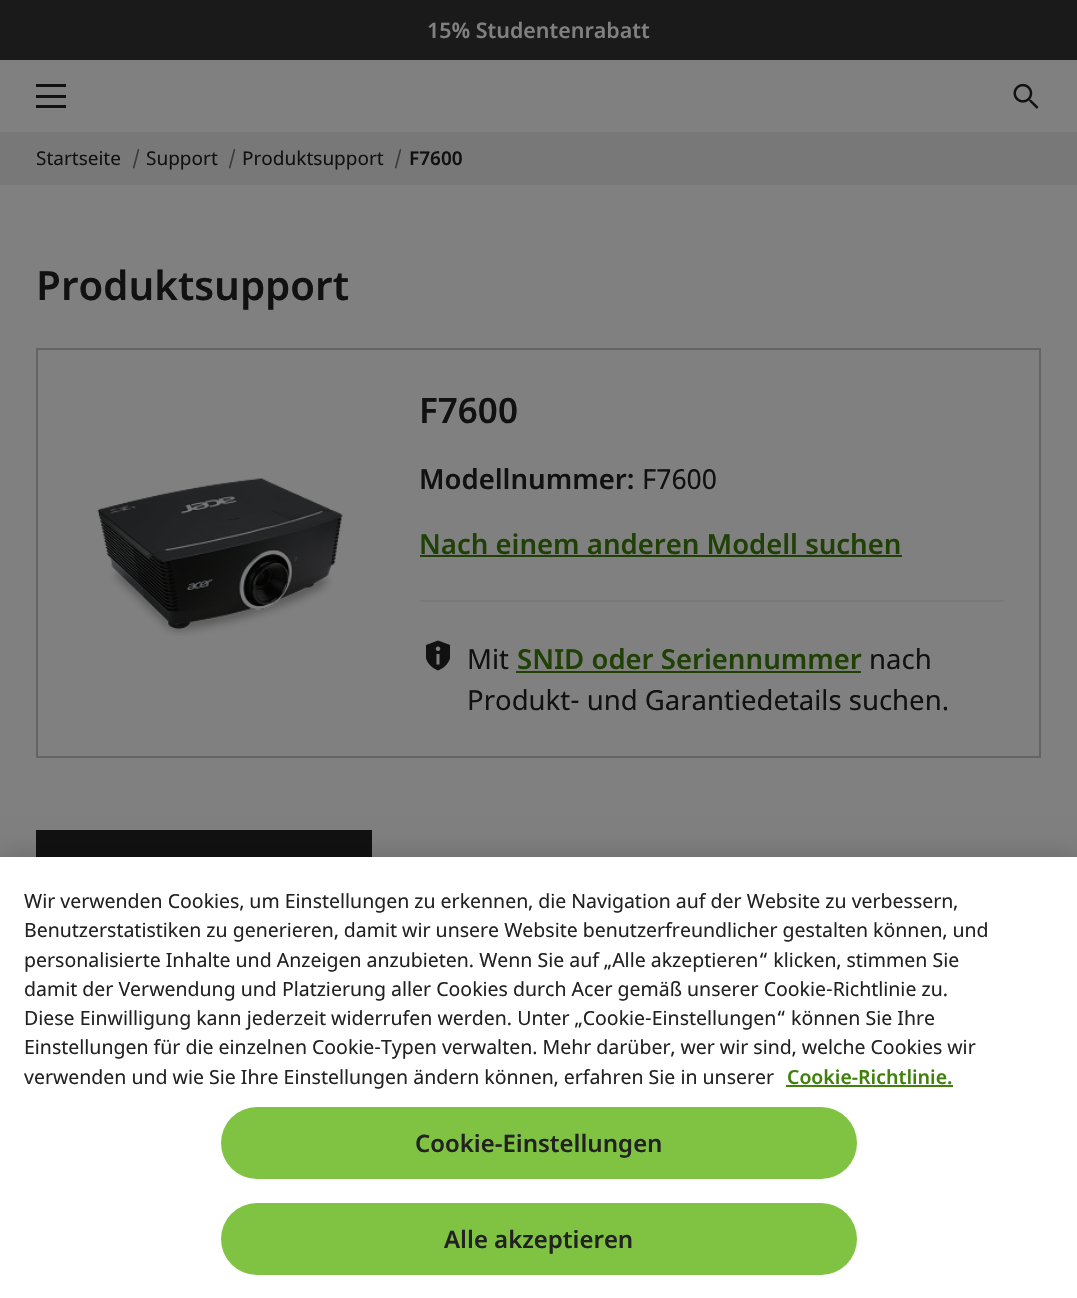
void draw(SkCanvas* c) {
SkPaint p;
p.setAntiAlias(true);
auto F=[&](const char* family, int weight, float size, bool italic = false){SkFontStyle style(weight, SkFontStyle::kNormal_Width,italic ? SkFontStyle::kItalic_Slant : SkFontStyle::kUpright_Slant);SkFont result(fontMgr->matchFamilyStyle(family, style), size);result.setSubpixel(true);return result;};
auto T=[&](const char* s, float x, float y, const SkFont& font){c->drawString(s, x, y, font, p);};
auto R=[&](float x, float y, float w, float h){c->drawRect(SkRect::MakeXYWH(x, y, w, h), p);};
auto Q=[&](float x, float y, float w, float h, float radius){c->drawRoundRect(SkRect::MakeXYWH(x, y, w, h), radius, radius, p);};
auto I=[&](const char* path, float x, float y, float w, float h){auto image = SkImages::DeferredFromEncodedData(SkData::MakeFromFileName(path));c->drawImageRect(image, SkRect::MakeXYWH(x, y, w, h), SkSamplingOptions());};
c->clear(0xff808080);
p.setColor(0xff1a1a1a);
R(0,0,1077,60);
auto f1 = F("Noto Sans",600,21.4);
p.setColor(0xff808080);
T("15% Studentenrabatt",427,38,f1);
p.setColor(0xff111111);
R(36,84,30,3);
R(36,95,30,3);
R(36,105,30,3);
I("1.png",1013,83,26,26);
p.setColor(0xff787878);
R(0,132,1077,53);
auto f2 = F("Noto Sans",400,19);
p.setColor(0xff111111);
T("Startseite",36,165,f2);
p.setColor(0xff3b3b3b);
T("/",132,165,f2);
p.setColor(0xff111111);
T("Support",146,165,f2);
p.setColor(0xff3b3b3b);
T("/",228,165,f2);
p.setColor(0xff111111);
T("Produktsupport",242,165,f2);
p.setColor(0xff3b3b3b);
T("/",394,165,f2);
auto f3 = F("Noto Sans",600,19);
p.setColor(0xff111111);
T("F7600",409,165,f3);
auto f4 = F("Noto Sans",600,40.25);
T("Produktsupport",36,300,f4);
p.setStroke(true);
p.setStrokeWidth(2);
p.setColor(0xff646464);
c->drawRect(SkRect::MakeXYWH(37,349,1003,408),p);
I("2.png",97,478,246,158);
auto f5 = F("Noto Sans",600,35);
p.setStroke(false);
p.setColor(0xff111111);
T("F7600",419,423,f5);
auto f6 = F("Noto Sans",600,27.5);
T("Modellnummer:",419,489,f6);
auto f7 = F("Noto Sans",400,27.5);
T("F7600",642,489,f7);
p.setColor(0xff204106);
T("Nach einem anderen Modell suchen",419,554,f6);
R(420,555,482,2);
p.setColor(0xff797979);
R(420,600,584,2);
I("3.png",426,640,24,31);
p.setColor(0xff111111);
T("Mit",467,669,f7);
p.setColor(0xff204106);
T("SNID oder Seriennummer",517,669,f6);
R(516,671,345,2);
p.setColor(0xff111111);
T("nach",869,669,f7);
T("Produkt- und Garantiedetails suchen.",467,710,f7);
R(36,830,336,27);
p.setColor(0x33000000);
p.setMaskFilter(SkMaskFilter::MakeBlur(kNormal_SkBlurStyle, 13.5));
c->drawRect(SkRect::MakeXYWH(0,857,1077,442),p);
p.setMaskFilter(nullptr);
p.setColor(0xffffffff);
R(0,857,1077,441);
auto f8 = F("Noto Sans",400,19.5);
p.setColor(0xff222222);
T("Wir verwenden Cookies, um Einstellungen zu erkennen, die Navigation auf der Website zu verbessern,",24,908,f8);
T("Benutzerstatistiken zu generieren, damit wir unsere Website benutzerfreundlicher gestalten können, und",24,937,f8);
T("personalisierte Inhalte und Anzeigen anzubieten. Wenn Sie auf „Alle akzeptieren“ klicken, stimmen Sie",24,967,f8);
T("damit der Verwendung und Platzierung aller Cookies durch Acer gemäß unserer Cookie-Richtlinie zu.",24,996,f8);
T("Diese Einwilligung kann jederzeit widerrufen werden. Unter „Cookie-Einstellungen“ können Sie Ihre",24,1025,f8);
T("Einstellungen für die einzelnen Cookie-Typen verwalten. Mehr darüber, wer wir sind, welche Cookies wir",24,1054,f8);
T("verwenden und wie Sie Ihre Einstellungen ändern können, erfahren Sie in unserer",24,1084,f8);
auto f9 = F("Noto Sans",600,19.5);
p.setColor(0xff40810c);
T("Cookie-Richtlinie.",787,1084,f9);
R(786,1085,167,2);
p.setColor(0xff80c343);
Q(221,1107,636,72,36);
auto f10 = F("Noto Sans",600,24);
p.setColor(0xff222222);
T("Cookie-Einstellungen",415,1152,f10);
p.setColor(0xff80c343);
Q(221,1203,636,72,36);
p.setColor(0xff222222);
T("Alle akzeptieren",444,1248,f10);
}
